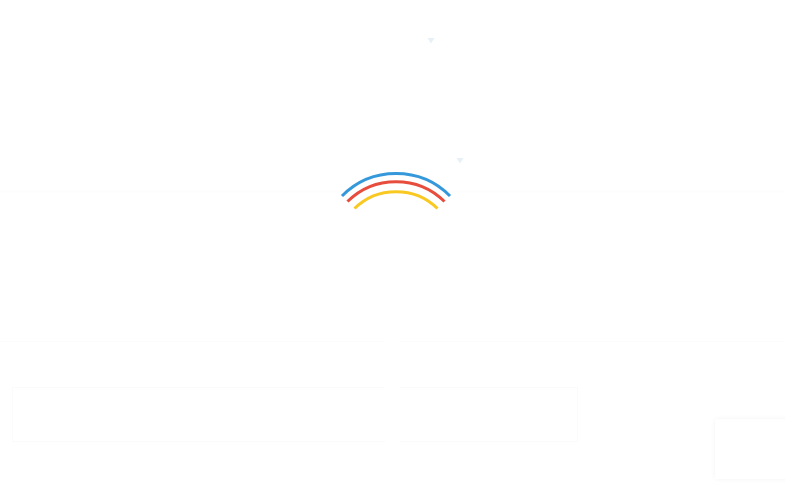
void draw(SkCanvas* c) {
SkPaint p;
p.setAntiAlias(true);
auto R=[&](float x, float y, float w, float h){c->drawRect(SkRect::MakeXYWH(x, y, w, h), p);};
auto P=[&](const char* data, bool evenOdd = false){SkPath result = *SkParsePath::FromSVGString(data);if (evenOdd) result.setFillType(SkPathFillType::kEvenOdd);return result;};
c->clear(0xffffffff);
p.setColor(0xfff8f8f8);
R(0,191,785,150);
c->save();
c->clipRect(SkRect::MakeXYWH(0,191,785,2));
p.setColor(0x26000000);
p.setMaskFilter(SkMaskFilter::MakeBlur(kNormal_SkBlurStyle, 1.5));
c->drawRect(SkRect::MakeXYWH(0,0,785,191),p);
p.setMaskFilter(nullptr);
c->restore();
p.setColor(0xffededed);
R(0,190,785,1);
p.setColor(0xff0066a0);
c->drawPath(P("M434.5 38l-3.5 5.5l-3.5-5.5z"),p);
c->drawPath(P("M463.5 158l-3.5 5.5l-3.5-5.5z"),p);
p.setColor(0xffe0e0e0);
R(0,341,785,1);
p.setStroke(true);
p.setStrokeWidth(1);
p.setColor(0xffd4d4d4);
c->drawRect(SkRect::MakeXYWH(12.5,387.5,565,54),p);
p.setStroke(false);
p.setColor(0xe6ffffff);
R(0,190,400,252);
c->save();
c->clipPath(P("M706 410h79v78h-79zm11 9h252c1 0 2 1 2 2v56c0 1-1 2-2 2h-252c-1 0-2-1-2-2v-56c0-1 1-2 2-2z",true),true);
p.setColor(0xff808080);
p.setMaskFilter(SkMaskFilter::MakeBlur(kNormal_SkBlurStyle, 2.5));
c->drawRoundRect(SkRect::MakeXYWH(715,419,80,60),2,2,p);
p.setMaskFilter(nullptr);
c->restore();
p.setColor(0xe6ffffff);
R(385,38,400,446);
p.setStroke(true);
p.setStrokeWidth(3);
p.setColor(0xff3498db);
c->drawPath(P("M342 196c29.5-30 78.5-30 108 0"),p);
p.setColor(0xffe74c3c);
c->drawPath(P("M347.5 201.5c26.5-26.5 70.5-26.5 97 0"),p);
p.setColor(0xfff9c922);
c->drawPath(P("M354.5 208.5c22.5-22.5 60.5-22.5 83 0"),p);
}
